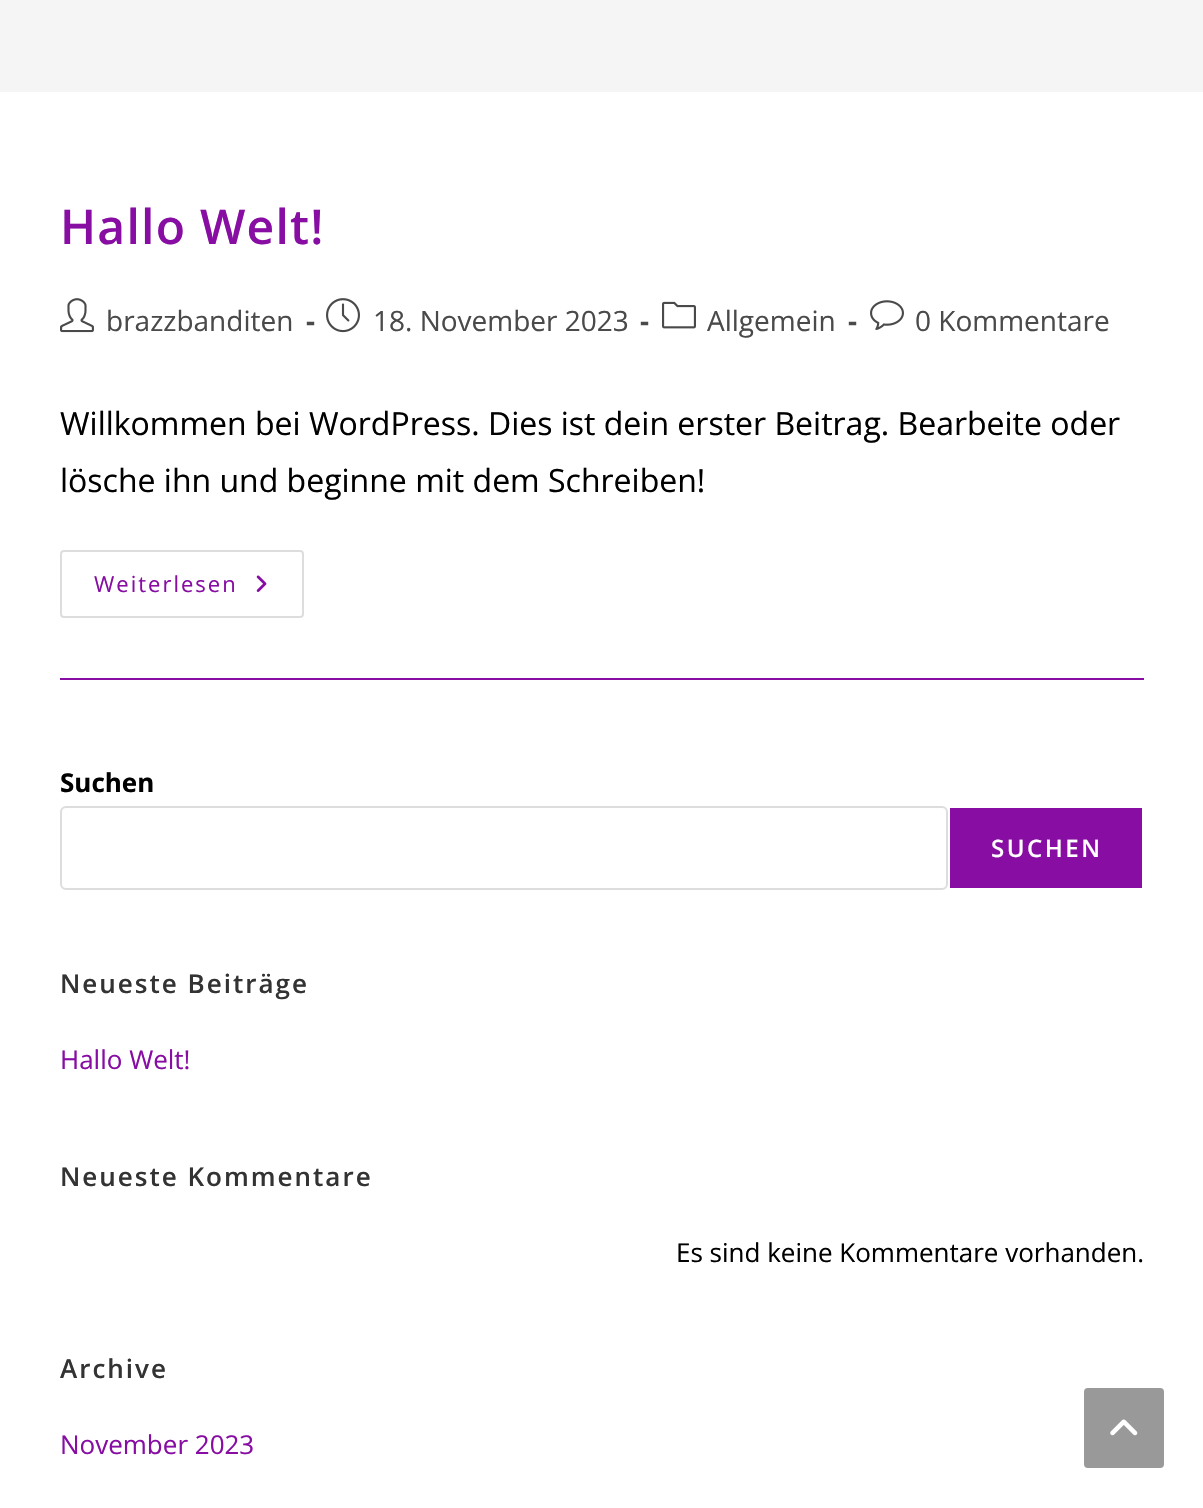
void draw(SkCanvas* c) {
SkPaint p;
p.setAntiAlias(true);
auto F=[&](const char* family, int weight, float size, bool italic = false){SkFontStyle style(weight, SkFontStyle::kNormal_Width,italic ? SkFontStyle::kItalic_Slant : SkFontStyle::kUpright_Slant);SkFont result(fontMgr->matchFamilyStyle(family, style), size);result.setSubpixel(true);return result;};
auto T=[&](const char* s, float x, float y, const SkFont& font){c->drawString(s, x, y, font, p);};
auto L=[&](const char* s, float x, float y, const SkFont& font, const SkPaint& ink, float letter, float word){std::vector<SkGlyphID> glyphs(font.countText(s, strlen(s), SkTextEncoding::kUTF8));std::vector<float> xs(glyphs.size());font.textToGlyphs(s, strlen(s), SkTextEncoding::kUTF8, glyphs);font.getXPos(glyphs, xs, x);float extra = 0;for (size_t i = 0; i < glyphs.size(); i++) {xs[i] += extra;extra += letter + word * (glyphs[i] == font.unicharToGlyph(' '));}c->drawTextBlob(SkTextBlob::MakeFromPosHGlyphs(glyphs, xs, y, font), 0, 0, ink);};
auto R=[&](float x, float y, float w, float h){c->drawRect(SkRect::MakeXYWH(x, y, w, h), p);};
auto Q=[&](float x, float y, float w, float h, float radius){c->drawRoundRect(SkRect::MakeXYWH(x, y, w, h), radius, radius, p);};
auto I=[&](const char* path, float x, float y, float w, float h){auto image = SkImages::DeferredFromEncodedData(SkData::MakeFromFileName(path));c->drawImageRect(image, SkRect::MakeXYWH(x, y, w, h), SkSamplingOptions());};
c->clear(0xffffffff);
p.setColor(0xfff5f5f5);
R(0,0,1203,92);
p.setColor(0xff870da3);
R(60,678,1084,2);
auto f1 = F("Open Sans",600,48);
L("Hallo Welt!",60,244,f1,p,1.25,0);
I("1.png",60,298,34,35);
auto f2 = F("Open Sans",400,28);
p.setColor(0xff4a4a4a);
T("brazzbanditen",106,331,f2);
auto f3 = F("Open Sans",700,28);
T("-",306,331,f3);
I("2.png",326,298,34,35);
T("18. November 2023",373,331,f2);
T("-",640,331,f3);
I("3.png",662,301,34,28);
T("Allgemein",707,331,f2);
T("-",848,331,f3);
I("4.png",870,300,34,30);
T("0 Kommentare",915,331,f2);
auto f4 = F("Open Sans",400,32);
p.setColor(0xff000000);
T("Willkommen bei WordPress. Dies ist dein erster Beitrag. Bearbeite oder",60,435,f4);
T("lösche ihn und beginne mit dem Schreiben!",60,492,f4);
p.setStroke(true);
p.setStrokeWidth(2);
p.setColor(0xffdddddd);
c->drawRoundRect(SkRect::MakeXYWH(61,551,242,66),3,3,p);
auto f5 = F("Open Sans",400,22);
p.setStroke(false);
p.setColor(0xff870da3);
L("Weiterlesen",94,592,f5,p,2,0);
I("5.png",256,575,11,17);
auto f6 = F("Open Sans",700,26);
p.setColor(0xff000000);
T("Suchen",60,792,f6);
p.setStroke(true);
p.setColor(0xffdddddd);
c->drawRoundRect(SkRect::MakeXYWH(61,807,886,82),5,5,p);
p.setStroke(false);
p.setColor(0xff870da3);
R(950,808,192,80);
auto f7 = F("Open Sans",600,24);
p.setColor(0xffffffff);
L("SUCHEN",991,857,f7,p,2.5,0);
auto f8 = F("Open Sans",600,26);
p.setColor(0xff333333);
L("Neueste Beiträge",60,993,f8,p,2,0);
auto f9 = F("Open Sans",400,26);
p.setColor(0xff870da3);
T("Hallo Welt!",60,1069,f9);
p.setColor(0xff333333);
L("Neueste Kommentare",60,1186,f8,p,2,0);
p.setColor(0xff000000);
T("Es sind keine Kommentare vorhanden.",676,1262,f9);
p.setColor(0xff333333);
L("Archive",60,1378,f8,p,2,0);
p.setColor(0xff870da3);
T("November 2023",60,1454,f9);
p.setColor(0xff999999);
Q(1084,1388,80,80,4);
I("6.png",1110,1419,28,17);
}
